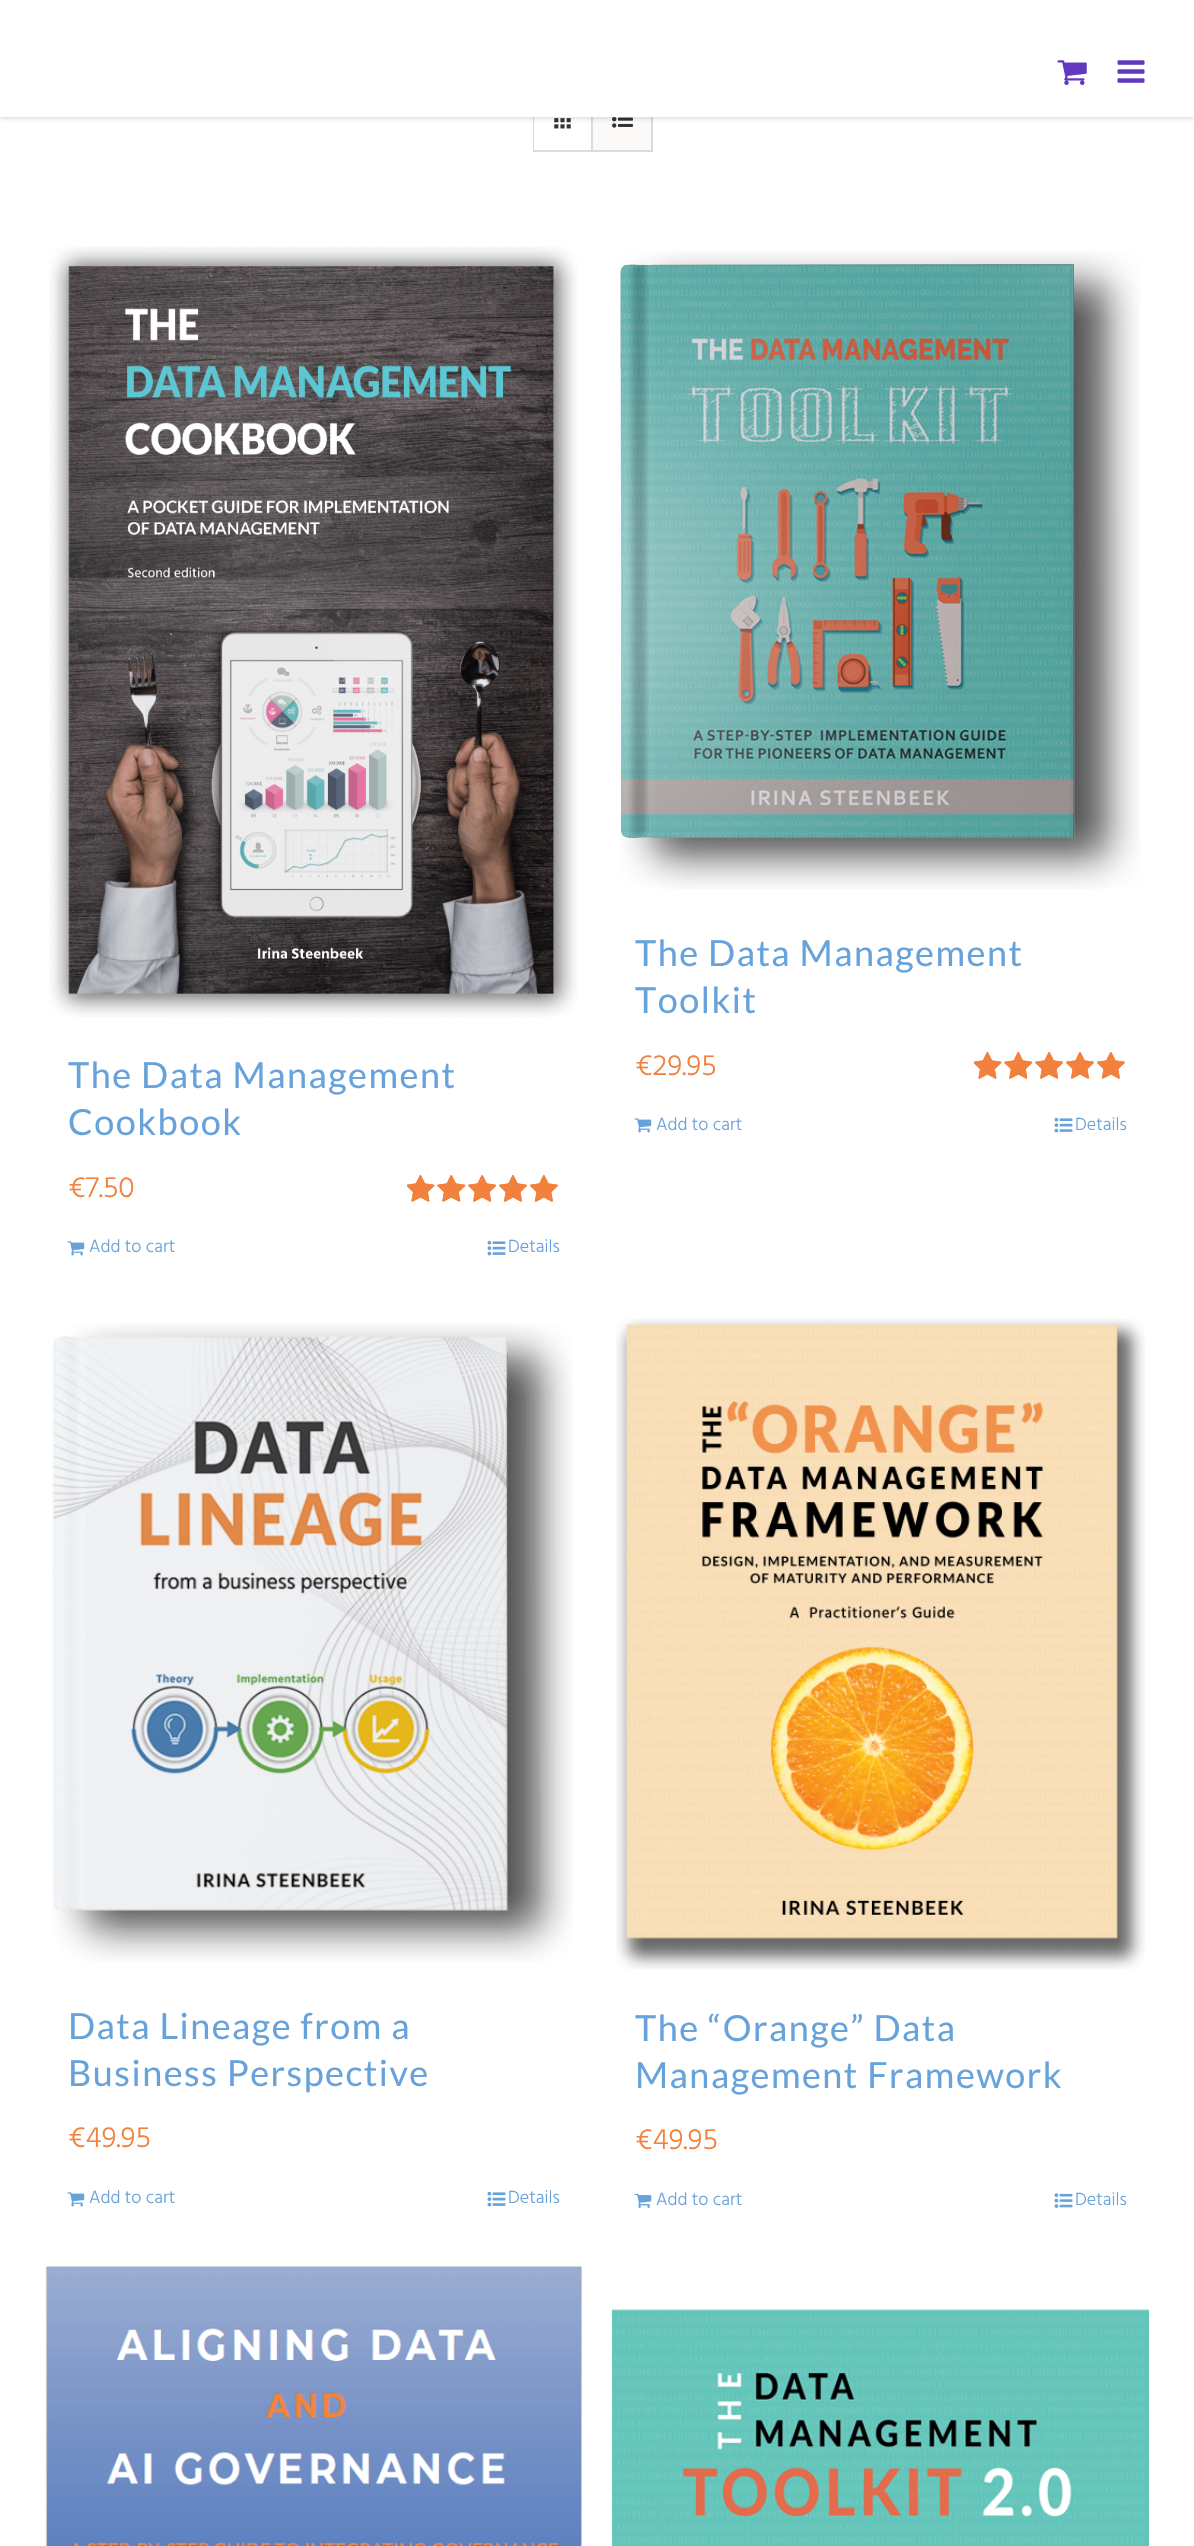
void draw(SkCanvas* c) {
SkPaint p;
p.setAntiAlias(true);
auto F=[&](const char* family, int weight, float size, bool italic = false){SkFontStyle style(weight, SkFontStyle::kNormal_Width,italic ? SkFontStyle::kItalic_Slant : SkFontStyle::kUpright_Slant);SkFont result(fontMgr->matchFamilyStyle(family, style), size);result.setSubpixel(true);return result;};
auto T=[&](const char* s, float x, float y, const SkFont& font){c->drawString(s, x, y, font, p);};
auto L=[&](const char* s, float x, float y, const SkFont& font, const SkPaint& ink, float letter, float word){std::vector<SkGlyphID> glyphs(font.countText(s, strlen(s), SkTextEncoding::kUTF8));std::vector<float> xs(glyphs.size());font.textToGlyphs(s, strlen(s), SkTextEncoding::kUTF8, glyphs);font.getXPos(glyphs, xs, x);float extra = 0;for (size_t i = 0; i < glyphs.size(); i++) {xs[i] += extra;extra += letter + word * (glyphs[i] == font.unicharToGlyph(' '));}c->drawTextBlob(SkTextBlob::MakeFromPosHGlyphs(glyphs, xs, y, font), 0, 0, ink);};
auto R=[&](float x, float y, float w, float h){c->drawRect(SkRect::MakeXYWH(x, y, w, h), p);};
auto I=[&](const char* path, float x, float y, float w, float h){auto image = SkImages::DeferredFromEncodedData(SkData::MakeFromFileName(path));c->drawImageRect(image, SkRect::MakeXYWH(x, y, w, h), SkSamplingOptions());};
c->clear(0xffffffff);
p.setStroke(true);
p.setStrokeWidth(2);
p.setColor(0xffdbdbdb);
c->drawRect(SkRect::MakeXYWH(534,91,118,60),p);
p.setStroke(false);
p.setColor(0xffffffff);
R(534,117,1,33);
p.setColor(0xffdbdbdb);
R(591,117,2,33);
I("3.png",554,118,17,11);
p.setColor(0xfffbfaf9);
R(593,117,58,33);
I("4.png",612,117,21,11);
p.setColor(0x1f000000);
p.setMaskFilter(SkMaskFilter::MakeBlur(kNormal_SkBlurStyle, 2));
c->drawRect(SkRect::MakeXYWH(0,2,1194,117),p);
p.setMaskFilter(nullptr);
p.setColor(0xffffffff);
R(0,0,1194,117);
I("1.png",1057,60,30,25);
I("2.png",1117,60,28,23);
I("5.png",620,251,520,638);
auto f1 = F("Lato",400,36);
p.setColor(0xff67a2db);
L("The Data Management",635,966,f1,p,1.5,0);
L("Toolkit",635,1013,f1,p,1.5,0);
auto f2 = F("Hind",300,30);
p.setColor(0xfff1813c);
T("€29.95",635,1075,f2);
I("6.png",974,1052,151,27);
I("7.png",974,1052,151,27);
I("8.png",634,1118,18,15);
auto f3 = F("Hind",300,18);
p.setColor(0xff67a2db);
T("Add to cart",656,1130,f3);
I("9.png",1054,1117,19,16);
T("Details",1075,1130,f3);
I("10.png",49,246,529,771);
L("The Data Management",68,1088,f1,p,1.5,0);
L("Cookbook",68,1135,f1,p,1.5,0);
p.setColor(0xfff1813c);
T("€7.50",68,1197,f2);
I("6.png",407,1175,151,27);
I("7.png",407,1175,151,27);
I("8.png",67,1241,18,15);
p.setColor(0xff67a2db);
T("Add to cart",89,1252,f3);
I("9.png",487,1240,19,16);
T("Details",508,1252,f3);
I("11.png",52,1323,521,639);
L("Data Lineage from a",68,2039,f1,p,1.5,0);
L("Business Perspective",68,2086,f1,p,1.5,0);
p.setColor(0xfff1813c);
T("€49.95",68,2147,f2);
I("8.png",67,2192,18,15);
p.setColor(0xff67a2db);
T("Add to cart",89,2203,f3);
I("9.png",487,2191,19,16);
T("Details",508,2203,f3);
I("12.png",616,1318,529,652);
L("The “Orange” Data",635,2041,f1,p,1.5,0);
L("Management Framework",635,2088,f1,p,1.5,0);
p.setColor(0xfff1813c);
T("€49.95",635,2149,f2);
I("13.png",634,2193,18,15);
p.setColor(0xff67a2db);
T("Add to cart",656,2205,f3);
I("14.png",1054,2193,19,15);
T("Details",1075,2205,f3);
I("15.png",45,2266,537,280);
I("16.png",612,2309,537,237);
}
